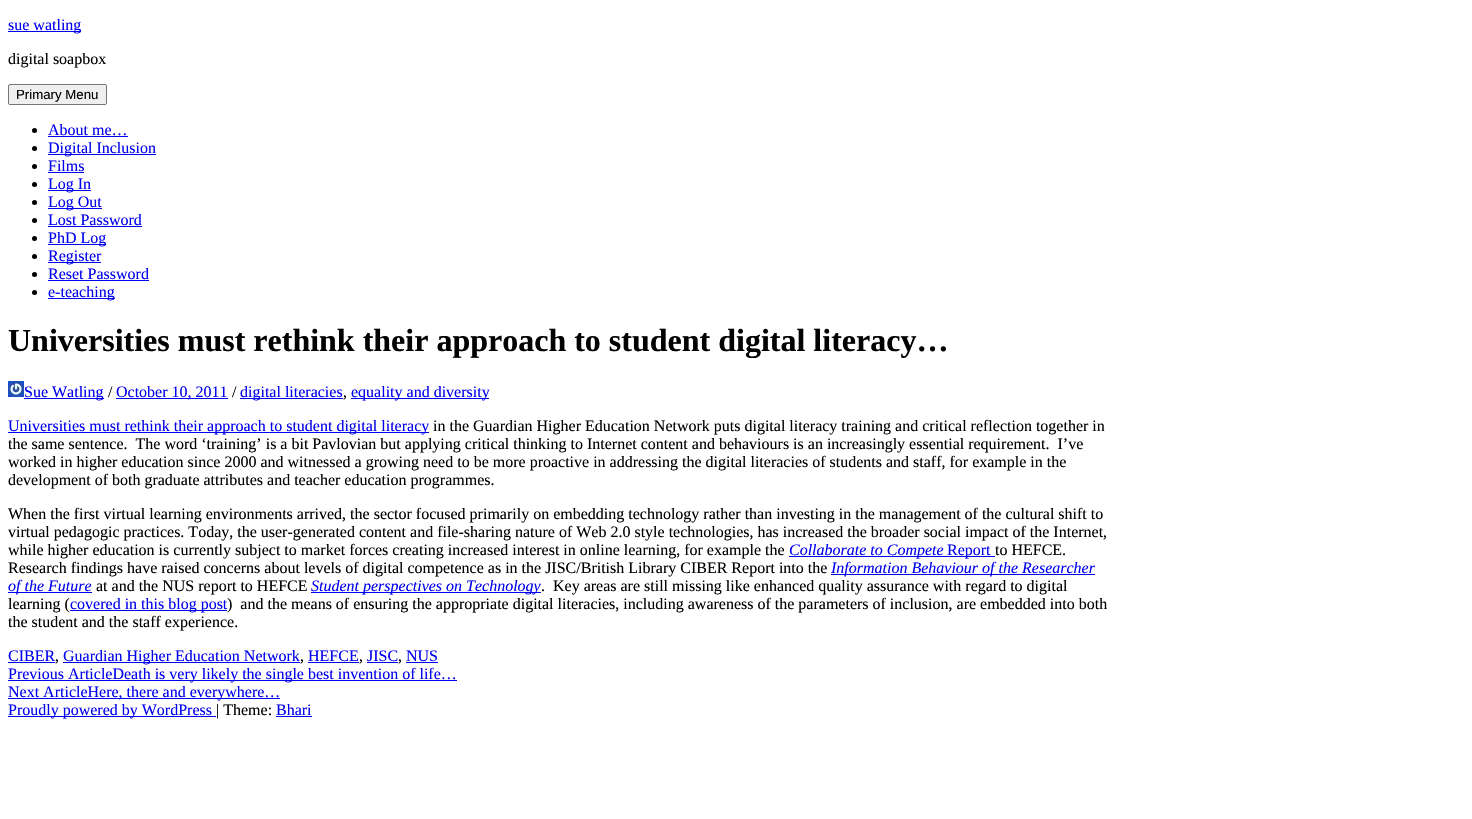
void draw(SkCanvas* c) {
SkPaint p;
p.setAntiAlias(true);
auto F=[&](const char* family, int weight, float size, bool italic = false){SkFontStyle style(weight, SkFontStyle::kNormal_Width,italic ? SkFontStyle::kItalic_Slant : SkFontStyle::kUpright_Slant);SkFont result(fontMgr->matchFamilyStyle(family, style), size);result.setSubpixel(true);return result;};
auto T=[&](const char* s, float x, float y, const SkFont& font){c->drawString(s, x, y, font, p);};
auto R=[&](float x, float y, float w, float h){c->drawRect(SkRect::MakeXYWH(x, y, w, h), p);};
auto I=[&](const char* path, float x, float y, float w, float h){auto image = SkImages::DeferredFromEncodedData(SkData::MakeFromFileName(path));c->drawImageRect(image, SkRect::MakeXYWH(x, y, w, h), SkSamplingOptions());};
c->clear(0xffffffff);
p.setColor(0xff0000ee);
R(8,31,73,1);
auto f1 = F("Liberation Serif",400,16);
T("sue watling",8,30,f1);
p.setColor(0xff000000);
T("digital soapbox",8,64,f1);
p.setColor(0xffefefef);
c->drawRoundRect(SkRect::MakeXYWH(8.5,84.5,98,20),1.5,1.5,p);
p.setStroke(true);
p.setStrokeWidth(1);
p.setColor(0xff767676);
c->drawRoundRect(SkRect::MakeXYWH(8.5,84.5,98,20),1.5,1.5,p);
auto f2 = F("Liberation Sans",400,13.25);
p.setStroke(false);
p.setColor(0xff000000);
T("Primary Menu",16,99,f2);
c->drawCircle(34.5,130.5,2.5,p);
p.setColor(0xff0000ee);
T("About me…",48,135,f1);
R(48,136,80,1);
p.setColor(0xff000000);
c->drawCircle(34.5,148.5,2.5,p);
p.setColor(0xff0000ee);
R(48,154,108,1);
T("Digital Inclusion",48,153,f1);
p.setColor(0xff000000);
c->drawCircle(34.5,166.5,2.5,p);
p.setColor(0xff0000ee);
T("Films",48,171,f1);
R(48,172,36,1);
p.setColor(0xff000000);
c->drawCircle(34.5,184.5,2.5,p);
p.setColor(0xff0000ee);
R(48,190,43,1);
T("Log In",48,189,f1);
p.setColor(0xff000000);
c->drawCircle(34.5,202.5,2.5,p);
p.setColor(0xff0000ee);
R(48,208,54,1);
T("Log Out",48,207,f1);
p.setColor(0xff000000);
c->drawCircle(34.5,220.5,2.5,p);
p.setColor(0xff0000ee);
T("Lost Password",48,225,f1);
R(48,226,94,1);
p.setColor(0xff000000);
c->drawCircle(34.5,238.5,2.5,p);
p.setColor(0xff0000ee);
R(48,244,58,1);
T("PhD Log",48,243,f1);
p.setColor(0xff000000);
c->drawCircle(34.5,256.5,2.5,p);
p.setColor(0xff0000ee);
R(48,262,53,1);
T("Register",48,261,f1);
p.setColor(0xff000000);
c->drawCircle(34.5,274.5,2.5,p);
p.setColor(0xff0000ee);
T("Reset Password",48,279,f1);
R(48,280,101,1);
p.setColor(0xff000000);
c->drawCircle(34.5,292.5,2.5,p);
p.setColor(0xff0000ee);
R(48,298,67,1);
T("e-teaching",48,297,f1);
auto f3 = F("Liberation Serif",700,32);
p.setColor(0xff000000);
T("Universities must rethink their approach to student digital literacy…",8,351,f3);
I("1.png",8,381,16,16);
p.setColor(0xff0000ee);
R(24,398,80,1);
T("Sue Watling",24,397,f1);
p.setColor(0xff000000);
T("/",108,397,f1);
p.setColor(0xff0000ee);
R(116,398,112,1);
T("October 10, 2011",116,397,f1);
p.setColor(0xff000000);
T("/",232,397,f1);
p.setColor(0xff0000ee);
R(240,398,103,1);
T("digital literacies",240,397,f1);
p.setColor(0xff000000);
T(",",343,397,f1);
p.setColor(0xff0000ee);
R(351,398,138,1);
T("equality and diversity",351,397,f1);
R(8,432,421,1);
T("Universities must rethink their approach to student digital literacy",8,431,f1);
p.setColor(0xff000000);
T("in the Guardian Higher Education Network puts digital literacy training and critical reflection together in",433,431,f1);
T("the same sentence.  The word ‘training’ is a bit Pavlovian but applying critical thinking to Internet content and behaviours is an increasingly essential requirement.  I’ve",8,449,f1);
T("worked in higher education since 2000 and witnessed a growing need to be more proactive in addressing the digital literacies of students and staff, for example in the",8,467,f1);
T("development of both graduate attributes and teacher education programmes.",8,485,f1);
T("When the first virtual learning environments arrived, the sector focused primarily on embedding technology rather than investing in the management of the cultural shift to",8,519,f1);
T("virtual pedagogic practices. Today, the user-generated content and file-sharing nature of Web 2.0 style technologies, has increased the broader social impact of the Internet,",8,537,f1);
T("while higher education is currently subject to market forces creating increased interest in online learning, for example the",8,555,f1);
p.setColor(0xff0000ee);
R(789,556,206,1);
auto f4 = F("Liberation Serif",400,16,true);
T("Collaborate to Compete",789,555,f4);
T("Report",947,555,f1);
p.setColor(0xff000000);
T("to HEFCE.",995,555,f1);
T("Research findings have raised concerns about levels of digital competence as in the JISC/British Library CIBER Report into the",8,573,f1);
p.setColor(0xff0000ee);
R(831,574,264,1);
T("Information Behaviour of the Researcher",831,573,f4);
R(8,592,84,1);
T("of the Future",8,591,f4);
p.setColor(0xff000000);
T("at and the NUS report to HEFCE",96,591,f1);
p.setColor(0xff0000ee);
R(311,592,230,1);
T("Student perspectives on Technology",311,591,f4);
p.setColor(0xff000000);
T(".  Key areas are still missing like enhanced quality assurance with regard to digital",541,591,f1);
T("learning (",8,609,f1);
p.setColor(0xff0000ee);
R(70,610,157,1);
T("covered in this blog post",70,609,f1);
p.setColor(0xff000000);
T(")  and the means of ensuring the appropriate digital literacies, including awareness of the parameters of inclusion, are embedded into both",227,609,f1);
T("the student and the staff experience.",8,627,f1);
p.setColor(0xff0000ee);
T("CIBER",8,661,f1);
p.setColor(0xff000000);
T(",",55,661,f1);
p.setColor(0xff0000ee);
R(8,662,47,1);
R(63,662,237,1);
T("Guardian Higher Education Network",63,661,f1);
p.setColor(0xff000000);
T(",",300,661,f1);
p.setColor(0xff0000ee);
T("HEFCE",308,661,f1);
p.setColor(0xff000000);
T(",",359,661,f1);
p.setColor(0xff0000ee);
R(308,662,51,1);
T("JISC",367,661,f1);
p.setColor(0xff000000);
T(",",398,661,f1);
p.setColor(0xff0000ee);
R(367,662,31,1);
R(406,662,32,1);
T("NUS",406,661,f1);
R(8,680,449,1);
T("Previous ArticleDeath is very likely the single best invention of life…",8,679,f1);
R(8,698,272,1);
T("Next ArticleHere, there and everywhere…",8,697,f1);
R(8,716,208,1);
T("Proudly powered by WordPress",8,715,f1);
p.setColor(0xff000000);
T("| Theme:",216,715,f1);
p.setColor(0xff0000ee);
T("Bhari",276,715,f1);
R(276,716,36,1);
}
